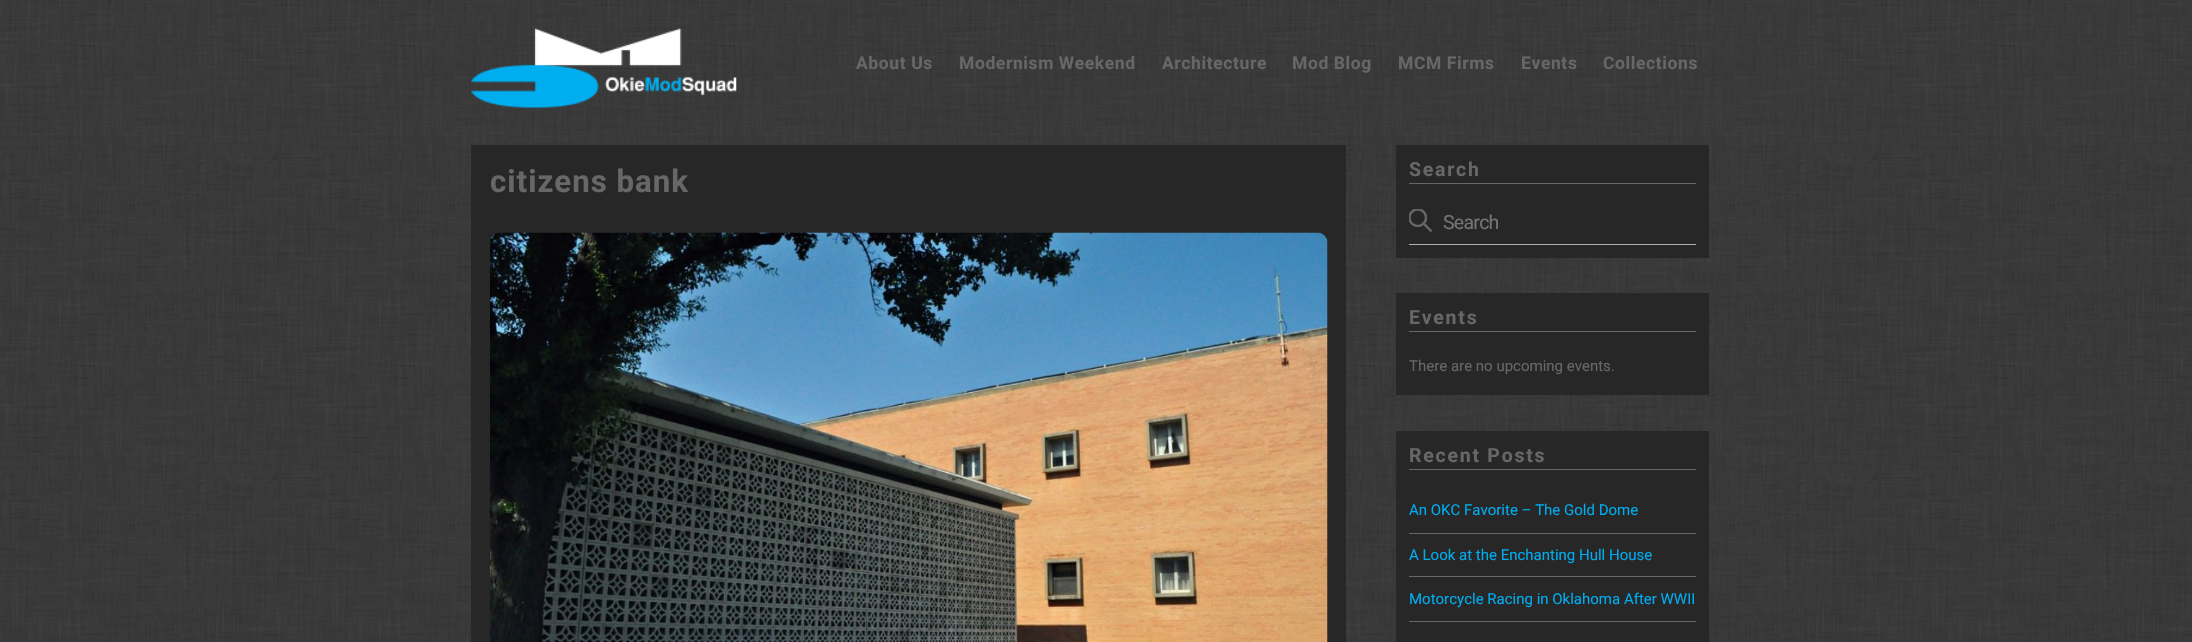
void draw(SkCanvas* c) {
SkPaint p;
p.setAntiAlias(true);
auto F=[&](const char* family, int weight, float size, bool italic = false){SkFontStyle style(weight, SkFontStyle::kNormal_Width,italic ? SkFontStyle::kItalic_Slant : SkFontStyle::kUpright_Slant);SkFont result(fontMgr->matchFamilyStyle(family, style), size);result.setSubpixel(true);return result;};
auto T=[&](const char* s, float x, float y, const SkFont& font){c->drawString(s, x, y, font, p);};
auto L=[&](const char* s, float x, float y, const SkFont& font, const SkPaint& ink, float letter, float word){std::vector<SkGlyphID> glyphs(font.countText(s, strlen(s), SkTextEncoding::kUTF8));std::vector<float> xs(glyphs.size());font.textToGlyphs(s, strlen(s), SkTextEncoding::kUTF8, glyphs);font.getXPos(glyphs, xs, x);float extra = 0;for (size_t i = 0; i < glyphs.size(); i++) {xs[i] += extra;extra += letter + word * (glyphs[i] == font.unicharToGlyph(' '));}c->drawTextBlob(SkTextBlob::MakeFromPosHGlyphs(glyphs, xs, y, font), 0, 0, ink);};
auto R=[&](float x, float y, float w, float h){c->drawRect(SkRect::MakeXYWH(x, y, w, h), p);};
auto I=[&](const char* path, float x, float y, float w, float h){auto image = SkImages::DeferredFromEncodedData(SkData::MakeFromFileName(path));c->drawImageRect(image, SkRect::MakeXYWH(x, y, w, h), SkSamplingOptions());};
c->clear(0xffffffff);
I("1.png",0,145,2192,497);
I("2.png",0,0,2192,145);
I("3.png",471,28,266,80);
auto f1 = F("Roboto",700,17.5);
p.setColor(0xff676767);
L("About Us",856,69,f1,p,.6,0);
L("Modernism Weekend",959,69,f1,p,.6,0);
L("Architecture",1162,69,f1,p,.6,0);
L("Mod Blog",1292,69,f1,p,.6,0);
L("MCM Firms",1398,69,f1,p,.6,0);
L("Events",1521,69,f1,p,.6,0);
L("Collections",1603,69,f1,p,.6,0);
p.setColor(0xff272727);
R(471,145,875,497);
auto f2 = F("Roboto",700,31.25);
p.setColor(0xff676767);
L("citizens bank",490,192,f2,p,1,0);
I("4.png",490,232,838,410);
p.setColor(0xff272727);
R(1396,145,313,113);
p.setColor(0xff676767);
R(1409,183,287,1);
auto f3 = F("Roboto",700,19.5);
L("Search",1409,176,f3,p,1.75,0);
p.setColor(0xffb0b0b0);
R(1409,244,287,1);
I("5.png",1409,209,23,23);
auto f4 = F("Roboto",400,19.5);
p.setColor(0xff757575);
L("Search",1443,229,f4,p,-.75,0);
p.setColor(0xff272727);
R(1396,293,313,102);
p.setColor(0xff676767);
R(1409,331,287,1);
L("Events",1409,324,f3,p,1.75,0);
auto f5 = F("Roboto",400,15);
T("There are no upcoming events.",1409,371,f5);
p.setColor(0xff272727);
R(1396,431,313,211);
p.setColor(0xff676767);
R(1409,469,287,1);
L("Recent Posts",1409,462,f3,p,1.75,0);
R(1409,533,287,1);
p.setColor(0xff00acf0);
T("An OKC Favorite – The Gold Dome",1409,515,f5);
p.setColor(0xff676767);
R(1409,576,287,1);
p.setColor(0xff00acf0);
T("A Look at the Enchanting Hull House",1409,560,f5);
p.setColor(0xff676767);
R(1409,621,287,1);
p.setColor(0xff00acf0);
T("Motorcycle Racing in Oklahoma After WWII",1409,604,f5);
}
